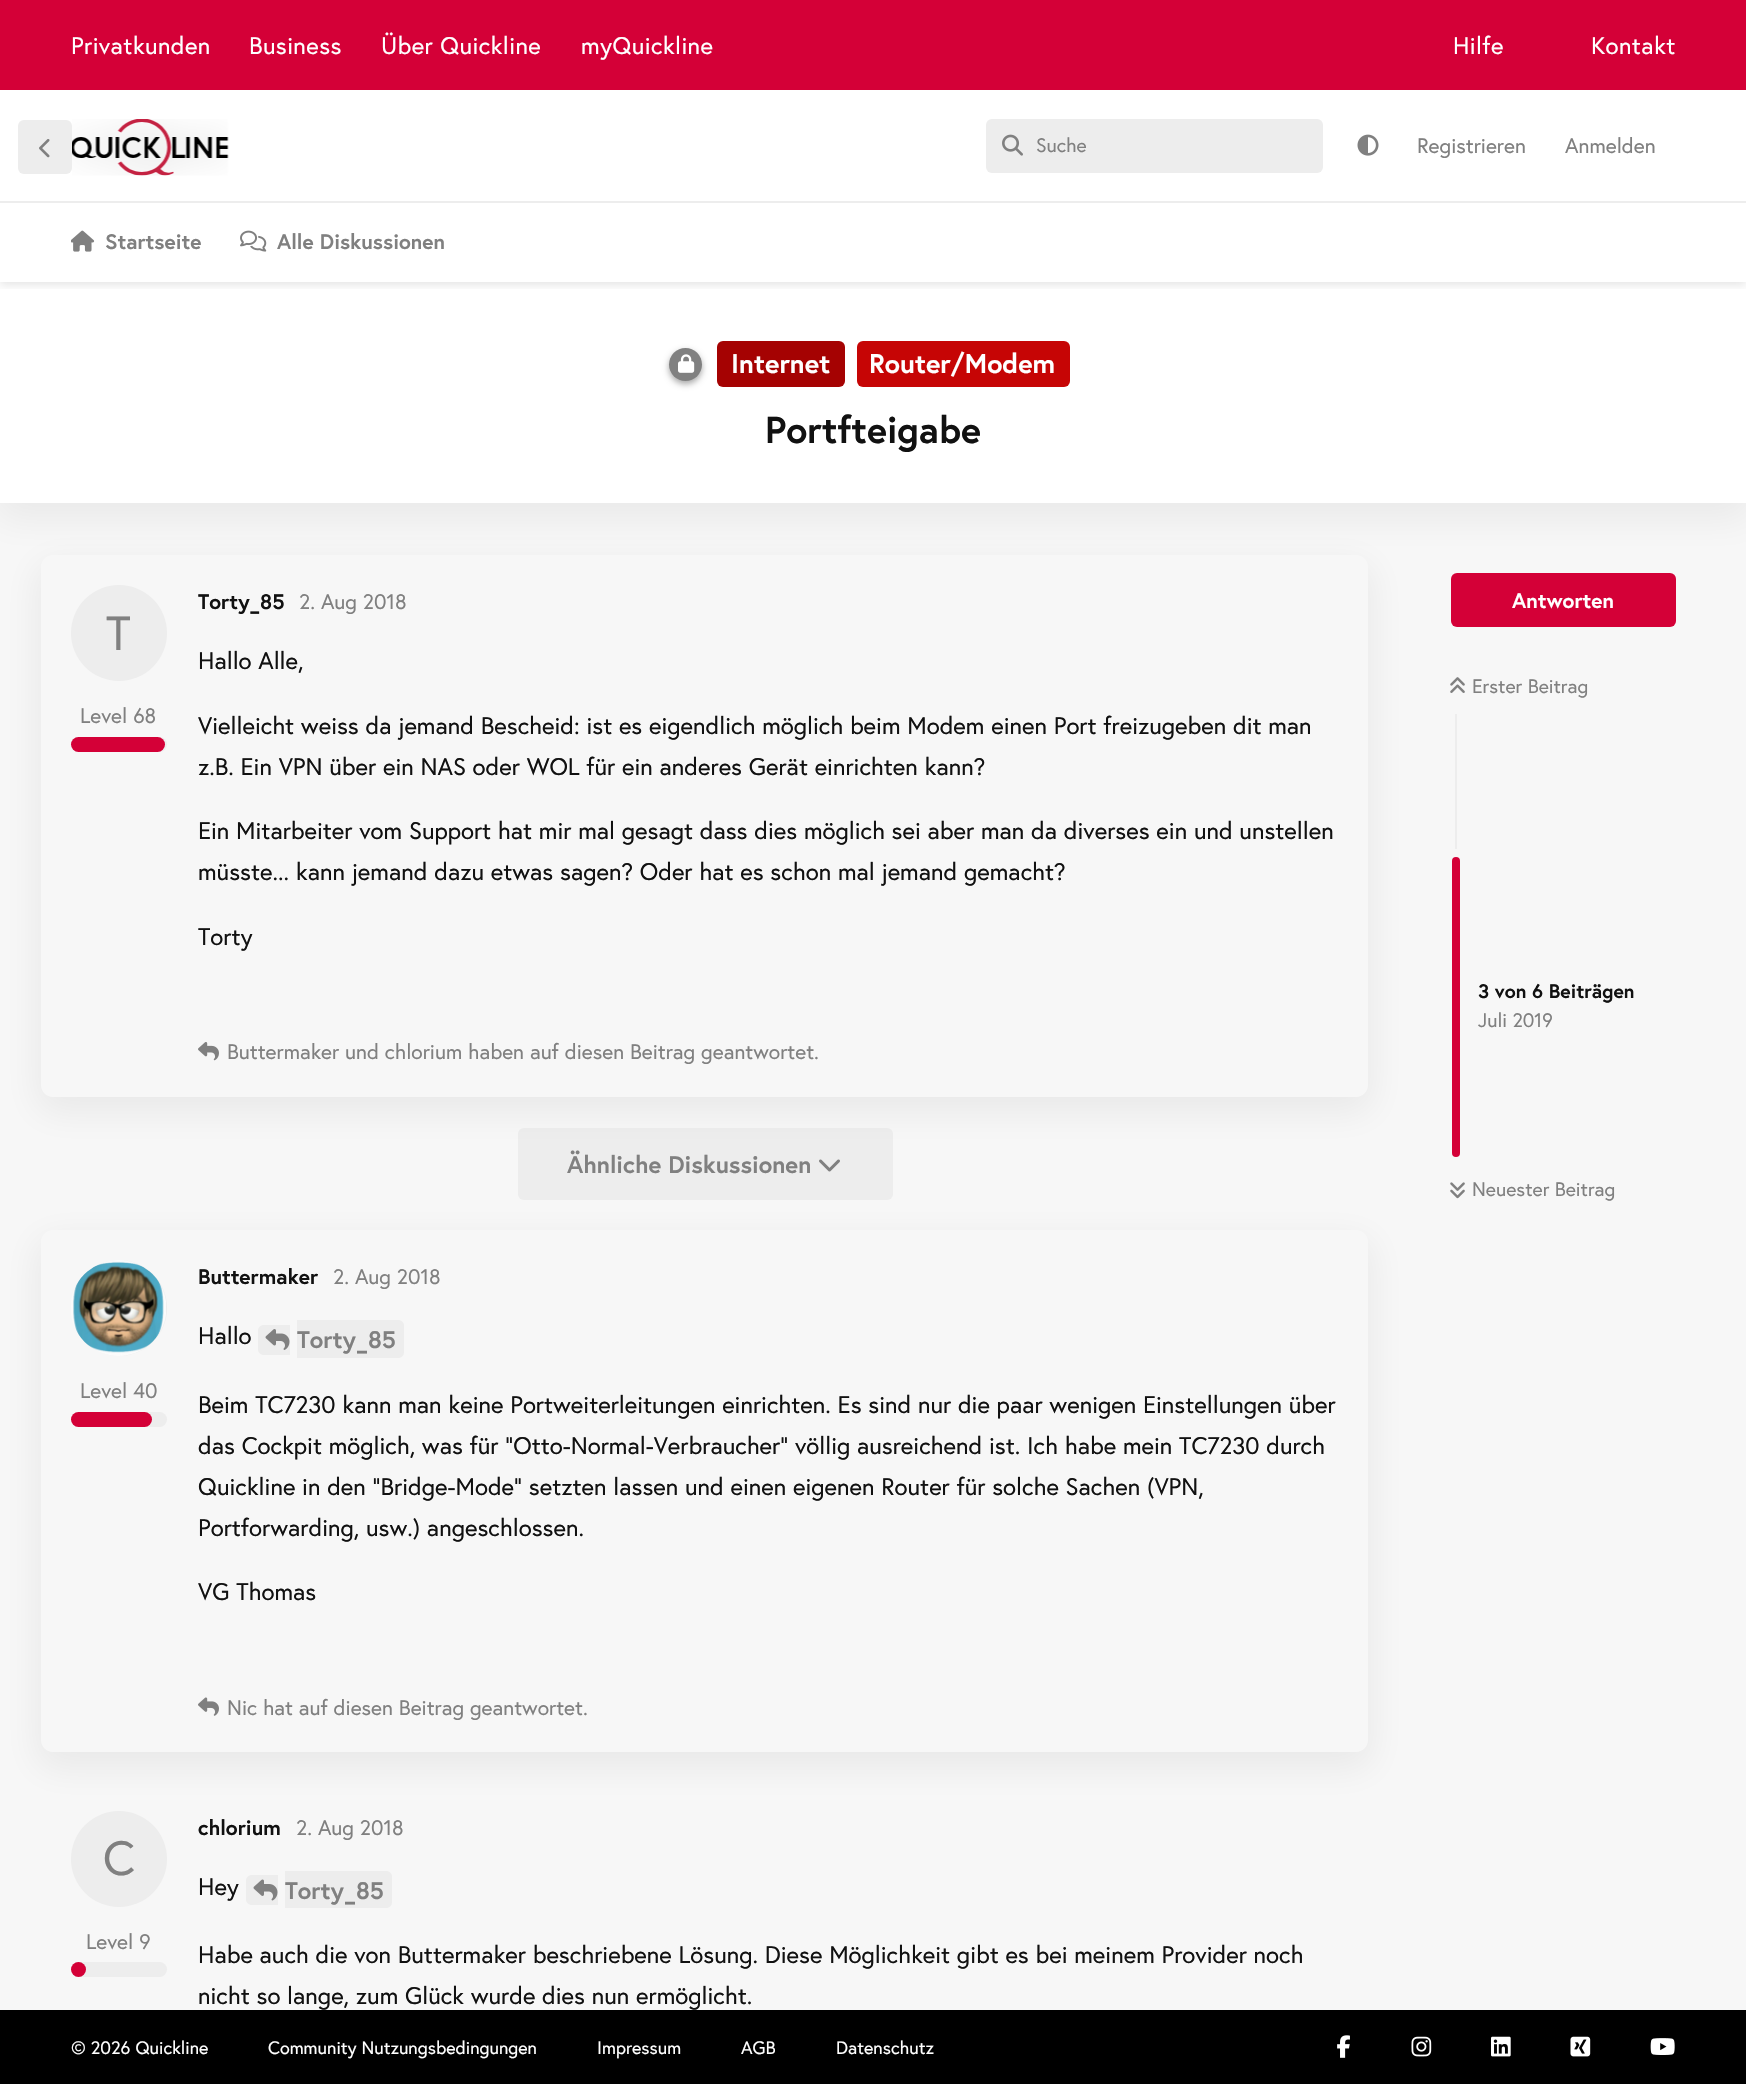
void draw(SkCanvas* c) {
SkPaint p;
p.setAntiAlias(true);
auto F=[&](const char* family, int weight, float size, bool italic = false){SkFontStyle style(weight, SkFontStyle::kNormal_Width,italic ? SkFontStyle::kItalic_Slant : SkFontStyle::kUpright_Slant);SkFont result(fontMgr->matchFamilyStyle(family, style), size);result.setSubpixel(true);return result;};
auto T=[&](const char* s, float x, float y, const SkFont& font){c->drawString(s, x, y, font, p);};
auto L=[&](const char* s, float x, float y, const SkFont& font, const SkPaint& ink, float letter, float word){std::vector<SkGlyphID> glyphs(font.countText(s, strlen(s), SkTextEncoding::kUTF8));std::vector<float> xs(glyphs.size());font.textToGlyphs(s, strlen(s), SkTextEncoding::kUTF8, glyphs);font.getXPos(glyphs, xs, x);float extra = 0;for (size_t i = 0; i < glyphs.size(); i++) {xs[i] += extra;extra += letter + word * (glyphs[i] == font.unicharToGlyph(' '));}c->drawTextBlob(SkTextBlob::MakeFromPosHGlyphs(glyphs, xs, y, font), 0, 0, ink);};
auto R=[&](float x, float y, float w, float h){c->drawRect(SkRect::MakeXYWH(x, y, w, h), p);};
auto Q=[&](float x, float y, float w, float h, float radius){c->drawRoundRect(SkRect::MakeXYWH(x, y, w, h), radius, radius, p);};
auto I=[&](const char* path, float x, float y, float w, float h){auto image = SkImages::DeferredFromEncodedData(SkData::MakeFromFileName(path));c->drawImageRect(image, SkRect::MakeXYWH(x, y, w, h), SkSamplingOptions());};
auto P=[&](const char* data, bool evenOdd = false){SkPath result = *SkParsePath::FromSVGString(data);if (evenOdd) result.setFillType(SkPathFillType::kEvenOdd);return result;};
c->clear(0xfff7f7f7);
p.setColor(0xffffffff);
R(0,90,1746,111);
p.setColor(0xffededed);
Q(18,120,54,54,6);
I("1.png",39,139,11,19);
p.setColor(0x0f111111);
p.setMaskFilter(SkMaskFilter::MakeBlur(kNormal_SkBlurStyle, 18));
c->drawRect(SkRect::MakeXYWH(-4,287,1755,232),p);
p.setMaskFilter(nullptr);
p.setColor(0xffffffff);
R(0,203,1746,300);
I("2.png",71,230,24,22);
I("3.png",240,230,27,22);
p.setColor(0xffededed);
R(0,201,1746,2);
I("4.png",72,119,157,57);
Q(986,119,337,54,6);
I("5.png",1002,134,21,22);
I("6.png",1357,134,22,22);
c->save();
c->clipRect(SkRect::MakeXYWH(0,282,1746,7));
p.setColor(0x1a000000);
p.setMaskFilter(SkMaskFilter::MakeBlur(kNormal_SkBlurStyle, 4.5));
c->drawRect(SkRect::MakeXYWH(0,5,1746,280),p);
p.setMaskFilter(nullptr);
c->restore();
p.setColor(0xffd40037);
R(0,0,1746,90);
auto f1 = F("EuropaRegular",400,24);
p.setColor(0xffffffff);
L("Privatkunden",71,54,f1,p,.4,0);
L("Business",249,54,f1,p,.4,0);
L("Über Quickline",381,54,f1,p,.4,0);
L("myQuickline",581,54,f1,p,.4,0);
L("Hilfe",1453,54,f1,p,.4,0);
L("Kontakt",1591,54,f1,p,.4,0);
auto f2 = F("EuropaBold",700,21);
p.setColor(0xff808080);
T("Startseite",105,249,f2);
T("Alle Diskussionen",277,249,f2);
auto f3 = F("EuropaRegular",400,19.5);
T("Suche",1036,152,f3);
auto f4 = F("EuropaRegular",400,21);
T("Registrieren",1417,153,f4);
T("Anmelden",1565,153,f4);
p.setColor(0x59000000);
p.setMaskFilter(SkMaskFilter::MakeBlur(kNormal_SkBlurStyle, 3));
c->drawRoundRect(SkRect::MakeXYWH(669,351,33,33),16.5,16.5,p);
p.setMaskFilter(nullptr);
p.setColor(0xff808080);
c->drawCircle(685.5,364.5,16.5,p);
I("7.png",678,354,17,19);
p.setColor(0xffa50202);
Q(717,341,128,46,6);
auto f5 = F("EuropaBold",700,27);
p.setColor(0xffffffff);
T("Internet",731,373,f5);
p.setColor(0xffc60505);
Q(857,341,213,46,6);
p.setColor(0xffffffff);
T("Router/Modem",869,373,f5);
auto f6 = F("EuropaBold",700,37.5);
p.setColor(0xff111111);
T("Portfteigabe",765,443,f6);
p.setColor(0xffededed);
Q(518,1128,375,72,6);
I("9.png",819,1159,21,13);
c->save();
c->clipPath(P("M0 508h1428v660h-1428zm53 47h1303c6.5 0 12 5.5 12 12v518c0 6.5-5.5 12-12 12h-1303c-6.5 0-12-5.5-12-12v-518c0-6.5 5.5-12 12-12z",true),true);
p.setColor(0x0f111111);
p.setMaskFilter(SkMaskFilter::MakeBlur(kNormal_SkBlurStyle, 18));
c->drawRoundRect(SkRect::MakeXYWH(36,563,1337,550),17,17,p);
p.setMaskFilter(nullptr);
c->restore();
p.setColor(0xff111111);
T("Torty_85",198,609,f2);
p.setColor(0xffededed);
c->drawCircle(119,633,48,p);
auto f7 = F("EuropaRegular",400,48);
p.setColor(0xff808080);
T("T",106,650,f7);
T("Level 68",80,723,f4);
p.setColor(0xffededed);
Q(71,737,96,15,7.5);
p.setColor(0xffd40037);
Q(71,737,94,15,7.5);
p.setColor(0xff808080);
T("2. Aug 2018",299,609,f4);
p.setColor(0xff111111);
T("Hallo Alle,",198,669,f1);
T("Vielleicht weiss da jemand Bescheid: ist es eigendlich möglich beim Modem einen Port freizugeben dit man",198,734,f1);
T("z.B. Ein VPN über ein NAS oder WOL für ein anderes Gerät einrichten kann?",198,775,f1);
T("Ein Mitarbeiter vom Support hat mir mal gesagt dass dies möglich sei aber man da diverses ein und unstellen",198,839,f1);
T("müsste... kann jemand dazu etwas sagen? Oder hat es schon mal jemand gemacht?",198,880,f1);
T("Torty",198,945,f1);
I("8.png",198,1042,21,19);
p.setColor(0xff808080);
T("Buttermaker und chlorium haben auf diesen Beitrag geantwortet.",227,1059,f4);
auto f8 = F("EuropaBold",700,24);
T("Ähnliche Diskussionen",567,1173,f8);
c->save();
c->clipPath(P("M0 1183h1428v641h-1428zm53 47h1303c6.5 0 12 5.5 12 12v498c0 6.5-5.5 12-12 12h-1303c-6.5 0-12-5.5-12-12v-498c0-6.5 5.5-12 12-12z",true),true);
p.setColor(0x0f111111);
p.setMaskFilter(SkMaskFilter::MakeBlur(kNormal_SkBlurStyle, 18));
c->drawRoundRect(SkRect::MakeXYWH(36,1238,1337,531),17,17,p);
p.setMaskFilter(nullptr);
c->restore();
p.setColor(0xffededed);
c->drawCircle(119,1308,48,p);
I("10.png",71,1260,95,96);
p.setColor(0xff111111);
T("Buttermaker",198,1284,f2);
p.setColor(0xff808080);
T("Level 40",80,1398,f4);
p.setColor(0xffededed);
Q(71,1412,96,15,7.5);
p.setColor(0xffd40037);
Q(71,1412,81,15,7.5);
p.setColor(0xff808080);
T("2. Aug 2018",333,1284,f4);
p.setColor(0xff111111);
T("Hallo",198,1344,f1);
p.setColor(0xffededed);
c->drawPath(P("M264 1325h26v30h-26c-3.5 0-6-2.5-6-6v-18c0-3.5 2.5-6 6-6z"),p);
c->drawPath(P("M297 1320h101c3.5 0 6 2.5 6 6v26c0 3.5-2.5 6-6 6h-101z"),p);
I("11.png",265,1329,25,21);
p.setColor(0xff808080);
T("Torty_85",297,1348,f8);
p.setColor(0xff111111);
T("Beim TC7230 kann man keine Portweiterleitungen einrichten. Es sind nur die paar wenigen Einstellungen über",198,1413,f1);
T("das Cockpit möglich, was für \"Otto-Normal-Verbraucher\" völlig ausreichend ist. Ich habe mein TC7230 durch",198,1454,f1);
T("Quickline in den \"Bridge-Mode\" setzten lassen und einen eigenen Router für solche Sachen (VPN,",198,1495,f1);
T("Portforwarding, usw.) angeschlossen.",198,1536,f1);
T("VG Thomas",198,1600,f1);
I("12.png",198,1697,21,19);
p.setColor(0xff808080);
T("Nic hat auf diesen Beitrag geantwortet.",227,1715,f4);
p.setColor(0xff111111);
T("chlorium",198,1835,f2);
p.setColor(0xffededed);
c->drawCircle(119,1859,48,p);
p.setColor(0xff808080);
T("C",103,1875,f7);
T("Level 9",86,1949,f4);
p.setColor(0xffededed);
Q(71,1962,96,15,7.5);
p.setColor(0xffd40037);
c->drawCircle(78.5,1969.5,7.5,p);
p.setColor(0xff808080);
T("2. Aug 2018",296,1835,f4);
p.setColor(0xff111111);
T("Hey",198,1895,f1);
p.setColor(0xffededed);
c->drawPath(P("M252 1875h26v30h-26c-3.5 0-6-2.5-6-6v-18c0-3.5 2.5-6 6-6z"),p);
c->drawPath(P("M285 1871h101c3.5 0 6 2.5 6 6v25c0 3.5-2.5 6-6 6h-101z"),p);
I("13.png",253,1879,25,22);
p.setColor(0xff808080);
T("Torty_85",285,1899,f8);
p.setColor(0xff111111);
T("Habe auch die von Buttermaker beschriebene Lösung. Diese Möglichkeit gibt es bei meinem Provider noch",198,1963,f1);
T("nicht so lange, zum Glück wurde dies nun ermöglicht.",198,2004,f1);
p.setColor(0xffd40037);
Q(1451,573,225,54,6);
p.setColor(0xffffffff);
T("Antworten",1512,608,f2);
I("14.png",1450,677,15,16);
p.setColor(0xff808080);
T("Erster Beitrag",1472,693,f3);
p.setColor(0xffededed);
R(1455,714,2,135);
p.setColor(0xffd40037);
Q(1452,857,8,300,4);
auto f9 = F("EuropaBold",700,19.5);
p.setColor(0xff111111);
T("3 von 6 Beiträgen",1478,998,f9);
p.setColor(0xff808080);
T("Juli 2019",1478,1027,f3);
I("15.png",1450,1182,15,17);
T("Neuester Beitrag",1472,1196,f3);
p.setColor(0xff000000);
R(0,2010,1746,74);
auto f10 = F("EuropaRegular",400,18);
p.setColor(0xffffffff);
T("© 2026 Quickline",71,2054,f10);
T("Community Nutzungsbedingungen",268,2054,f10);
T("Impressum",597,2054,f10);
T("AGB",741,2054,f10);
T("Datenschutz",836,2054,f10);
I("16.png",1337,2035,13,23);
I("17.png",1411,2036,21,21);
I("18.png",1491,2036,20,21);
I("19.png",1570,2036,21,21);
I("20.png",1650,2038,25,17);
}
